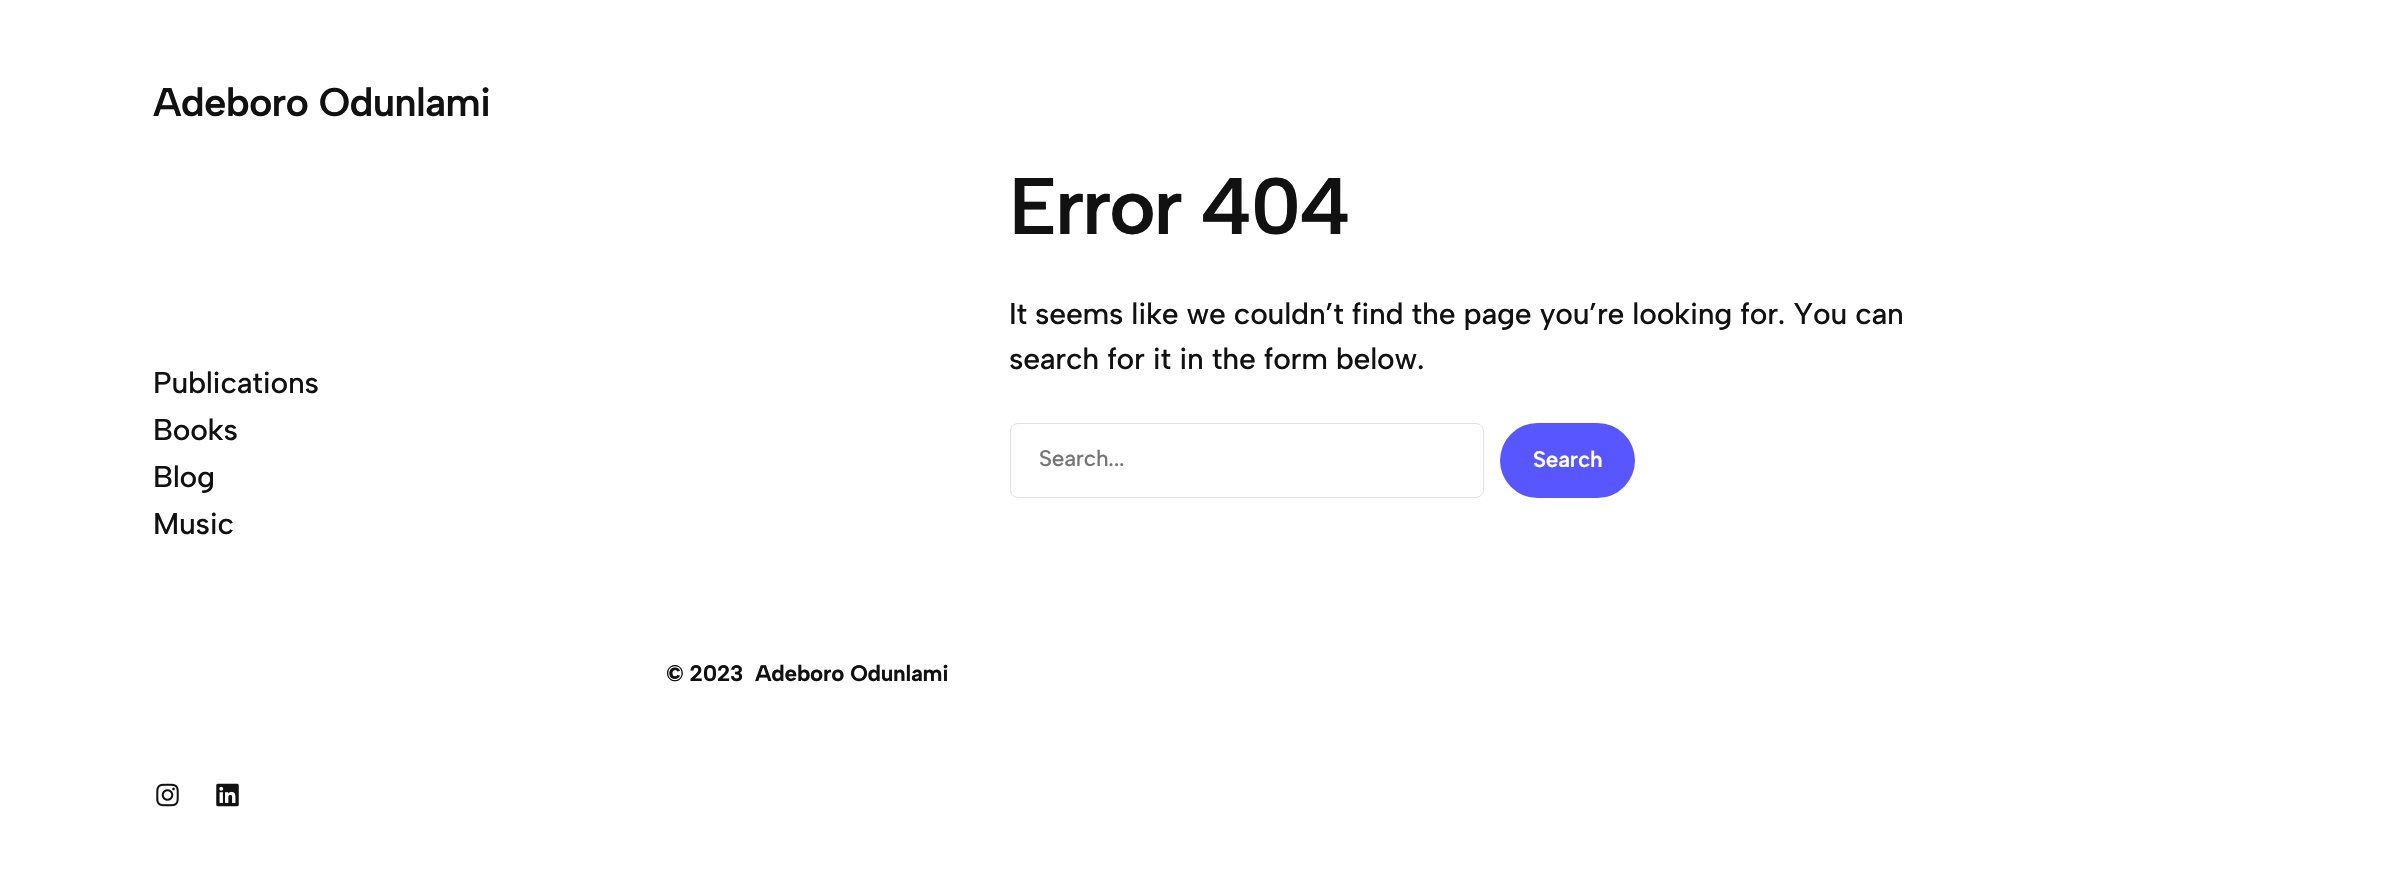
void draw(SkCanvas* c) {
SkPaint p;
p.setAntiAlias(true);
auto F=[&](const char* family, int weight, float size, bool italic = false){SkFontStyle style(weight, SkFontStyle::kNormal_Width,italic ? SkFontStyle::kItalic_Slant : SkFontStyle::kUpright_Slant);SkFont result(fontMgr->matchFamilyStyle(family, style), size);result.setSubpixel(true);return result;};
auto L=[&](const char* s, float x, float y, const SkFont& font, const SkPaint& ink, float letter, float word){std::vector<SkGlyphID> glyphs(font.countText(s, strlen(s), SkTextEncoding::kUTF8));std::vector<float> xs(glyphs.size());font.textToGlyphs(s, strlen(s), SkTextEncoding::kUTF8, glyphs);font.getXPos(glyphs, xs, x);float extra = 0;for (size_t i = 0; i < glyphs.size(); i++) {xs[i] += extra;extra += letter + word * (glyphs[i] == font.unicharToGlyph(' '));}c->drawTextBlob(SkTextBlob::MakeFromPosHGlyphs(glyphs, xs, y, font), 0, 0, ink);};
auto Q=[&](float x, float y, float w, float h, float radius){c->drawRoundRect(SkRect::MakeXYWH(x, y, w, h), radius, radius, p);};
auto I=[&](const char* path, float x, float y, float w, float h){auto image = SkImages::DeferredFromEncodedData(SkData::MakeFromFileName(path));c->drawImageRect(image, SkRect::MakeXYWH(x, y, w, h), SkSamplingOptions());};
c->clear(0xffffffff);
auto f1 = F("Albert Sans",600,40);
p.setColor(0xff111111);
L("Adeboro Odunlami",153,116,f1,p,-.75,0);
auto f2 = F("Albert Sans",500,30);
L("Publications",153,393,f2,p,-.25,0);
L("Books",153,440,f2,p,-.25,0);
L("Blog",153,487,f2,p,-.25,0);
L("Music",153,534,f2,p,-.25,0);
I("1.png",156,783,23,24);
I("2.png",216,783,23,24);
auto f3 = F("Albert Sans",600,80);
L("Error 404",1009,234,f3,p,-2.5,0);
L("It seems like we couldn’t find the page you’re looking for. You can",1009,324,f2,p,-.25,0);
L("search for it in the form below.",1009,369,f2,p,-.25,0);
p.setStroke(true);
p.setStrokeWidth(1);
p.setColor(0xffe2e2e2);
c->drawRoundRect(SkRect::MakeXYWH(1010.5,423.5,473,74),7.5,7.5,p);
auto f4 = F("Albert Sans",500,22.5);
p.setStroke(false);
p.setColor(0xff757575);
L("Search...",1039,466,f4,p,-.25,0);
p.setColor(0xff5857ff);
Q(1500,423,135,75,37.5);
auto f5 = F("Albert Sans",600,22.5);
p.setColor(0xffffffff);
L("Search",1533,467,f5,p,-.25,0);
auto f6 = F("Albert Sans",700,22.5);
p.setColor(0xff111111);
L("© 2023",666,681,f6,p,-.25,0);
L("Adeboro Odunlami",755,681,f6,p,-.25,0);
}
